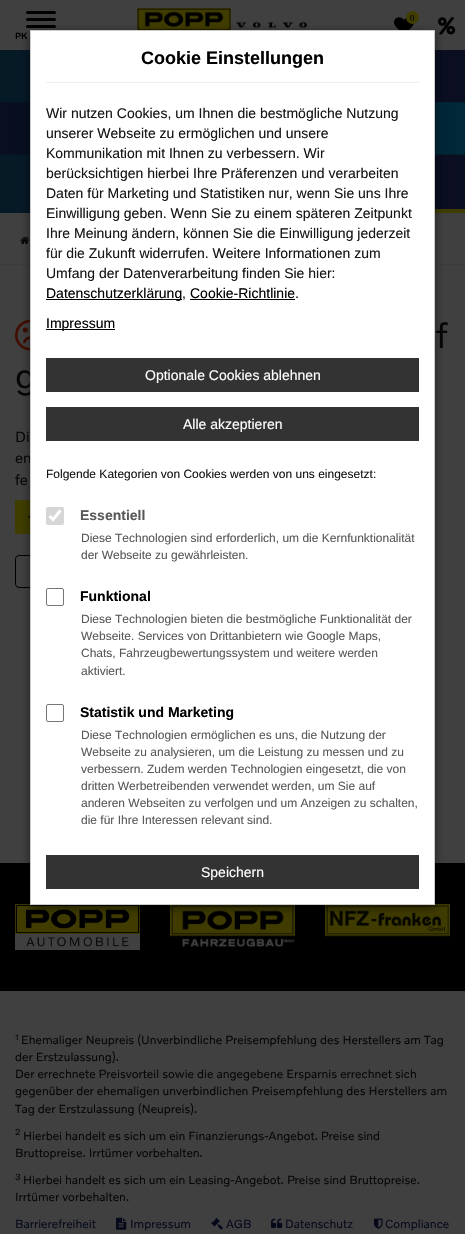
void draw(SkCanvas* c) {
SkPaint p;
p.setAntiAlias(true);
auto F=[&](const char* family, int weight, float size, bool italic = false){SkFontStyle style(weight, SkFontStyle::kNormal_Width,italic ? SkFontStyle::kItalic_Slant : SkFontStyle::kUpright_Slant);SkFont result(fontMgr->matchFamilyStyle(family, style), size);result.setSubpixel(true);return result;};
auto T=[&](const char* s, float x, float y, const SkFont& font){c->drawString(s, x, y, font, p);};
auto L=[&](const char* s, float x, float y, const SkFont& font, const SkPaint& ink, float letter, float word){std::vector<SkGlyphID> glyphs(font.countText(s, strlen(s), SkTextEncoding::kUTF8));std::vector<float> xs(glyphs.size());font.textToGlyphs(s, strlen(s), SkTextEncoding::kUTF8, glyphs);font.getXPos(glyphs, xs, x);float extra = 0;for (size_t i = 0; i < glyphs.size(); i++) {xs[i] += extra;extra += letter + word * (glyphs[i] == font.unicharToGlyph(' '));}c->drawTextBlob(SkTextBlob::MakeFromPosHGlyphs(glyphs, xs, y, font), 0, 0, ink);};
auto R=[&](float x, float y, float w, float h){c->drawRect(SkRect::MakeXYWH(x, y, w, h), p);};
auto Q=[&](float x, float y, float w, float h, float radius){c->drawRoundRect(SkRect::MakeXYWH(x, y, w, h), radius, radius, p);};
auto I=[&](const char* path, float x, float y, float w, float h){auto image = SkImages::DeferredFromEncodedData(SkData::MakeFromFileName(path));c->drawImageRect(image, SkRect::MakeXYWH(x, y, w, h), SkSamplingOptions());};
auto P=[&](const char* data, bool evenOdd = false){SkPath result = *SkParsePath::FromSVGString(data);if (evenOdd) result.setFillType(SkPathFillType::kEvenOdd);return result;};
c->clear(0xff404040);
I("1.png",137,8,94,22);
I("2.png",236,21,71,8);
I("3.png",394,17,20,13);
p.setColor(0xff403d00);
c->drawCircle(412.5,17.5,6.5,p);
auto f1 = F("Liberation Serif",400,9);
p.setColor(0xff000000);
T("0",410,21,f1);
I("4.png",438,17,18,18);
Q(26,18,30,3,1.5);
Q(26,11,30,3,1.5);
Q(26,25,30,3,1.5);
auto f2 = F("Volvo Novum",500,9);
L("PK",15,39,f2,p,0,-1);
I("5.png",0,50,465,163);
p.setColor(0xff403d00);
R(435,209,30,4);
p.setColor(0xff3c3c3c);
R(0,264,465,1);
I("6.png",20,236,10,8);
I("7.png",15,319,15,32);
auto f3 = F("Volvo Novum",400,36);
p.setColor(0xff060606);
T("f",436,348,f3);
T("g",15,388,f3);
auto f4 = F("Volvo Novum",400,15);
T("Di",15,442,f4);
T("en",15,463,f4);
T("fe",15,485,f4);
p.setColor(0xff403d00);
R(15,500,15,34);
I("8.png",28,515,2,3);
p.setStroke(true);
p.setStrokeWidth(1);
p.setColor(0xff000000);
c->drawRoundRect(SkRect::MakeXYWH(15.5,555.5,185,32),3.5,3.5,p);
p.setStroke(false);
R(0,863,465,128);
I("9.png",15,904,125,46);
I("10.png",170,905,125,42);
I("11.png",325,904,125,33);
auto f5 = F("Volvo Novum",400,8);
p.setColor(0xff060606);
T("1",15,1040,f5);
auto f6 = F("Volvo Novum",400,12);
T("Ehemaliger Neupreis (Unverbindliche Preisempfehlung des Herstellers am Tag",21,1044,f6);
T("der Erstzulassung).",15,1061,f6);
T("Der errechnete Preisvorteil sowie die angegebene Ersparnis errechnet sich",15,1078,f6);
T("gegenüber der ehemaligen unverbindlichen Preisempfehlung des Herstellers am",15,1095,f6);
T("Tag der Erstzulassung (Neupreis).",15,1113,f6);
auto f7 = F("Volvo Novum",400,9);
T("2",15,1135,f7);
T("Hierbei handelt es sich um ein Finanzierungs-Angebot. Preise sind",23,1140,f6);
T("Bruttopreise. Irrtümer vorbehalten.",15,1157,f6);
T("3",15,1180,f7);
T("Hierbei handelt es sich um ein Leasing-Angebot. Preise sind Bruttopreise.",23,1184,f6);
T("Irrtümer vorbehalten.",15,1201,f6);
p.setColor(0xff05091b);
T("Barrierefreiheit",15,1228,f6);
I("12.png",116,1217,11,13);
T("Impressum",130,1228,f6);
I("13.png",211,1218,12,12);
T("AGB",226,1228,f6);
I("14.png",271,1218,12,10);
T("Datenschutz",285,1228,f6);
I("15.png",374,1218,9,11);
T("Compliance",385,1228,f6);
p.setColor(0x80000000);
p.setMaskFilter(SkMaskFilter::MakeBlur(kNormal_SkBlurStyle, 4.5));
c->drawRect(SkRect::MakeXYWH(30,33,405,875),p);
p.setMaskFilter(nullptr);
p.setColor(0xffffffff);
c->drawRect(SkRect::MakeXYWH(30.5,30.5,404,874),p);
p.setStroke(true);
p.setColor(0xffcccccc);
c->drawRect(SkRect::MakeXYWH(30.5,30.5,404,874),p);
p.setStroke(false);
p.setColor(0xffeeeeee);
R(46,82,373,1);
auto f8 = F("Liberation Sans",700,18);
p.setColor(0xff000000);
T("Cookie Einstellungen",141,64,f8);
auto f9 = F("Liberation Sans",400,14);
p.setColor(0xff161619);
T("Wir nutzen Cookies, um Ihnen die bestmögliche Nutzung",46,118,f9);
T("unserer Webseite zu ermöglichen und unsere",46,138,f9);
T("Kommunikation mit Ihnen zu verbessern. Wir",46,158,f9);
T("berücksichtigen hierbei Ihre Präferenzen und verarbeiten",46,178,f9);
T("Daten für Marketing und Statistiken nur, wenn Sie uns Ihre",46,198,f9);
T("Einwilligung geben. Wenn Sie zu einem späteren Zeitpunkt",46,218,f9);
T("Ihre Meinung ändern, können Sie die Einwilligung jederzeit",46,238,f9);
T("für die Zukunft widerrufen. Weitere Informationen zum",46,258,f9);
T("Umfang der Datenverarbeitung finden Sie hier:",46,278,f9);
p.setColor(0xff000000);
R(46,299,136,1);
T("Datenschutzerklärung",46,298,f9);
p.setColor(0xff161619);
T(",",182,298,f9);
p.setColor(0xff000000);
T("Cookie-Richtlinie",190,298,f9);
R(190,299,105,1);
p.setColor(0xff161619);
T(".",295,298,f9);
p.setColor(0xff000000);
R(46,329,69,1);
T("Impressum",46,328,f9);
p.setColor(0xff333333);
R(46,358,373,34);
p.setColor(0xffffffff);
T("Optionale Cookies ablehnen",145,380,f9);
p.setColor(0xff333333);
R(46,407,373,34);
p.setColor(0xffffffff);
T("Alle akzeptieren",183,429,f9);
auto f10 = F("Liberation Sans",400,12);
p.setColor(0xff161619);
T("Folgende Kategorien von Cookies werden von uns eingesetzt:",46,478,f10);
p.setColor(0xffd6d6d6);
Q(46,507,18,18,2);
p.setStroke(true);
p.setStrokeWidth(2.9);
p.setColor(0xffffffff);
c->drawPath(P("M49.5 516l3.5 3.5l7.5-9"),p);
auto f11 = F("Liberation Sans",700,14);
p.setStroke(false);
p.setColor(0xff585858);
T("Essentiell",80,520,f11);
T("Diese Technologien sind erforderlich, um die Kernfunktionalität",81,542,f10);
T("der Webseite zu gewährleisten.",81,559,f10);
p.setStroke(true);
p.setStrokeWidth(1);
p.setColor(0xff767676);
c->drawRoundRect(SkRect::MakeXYWH(46.5,588.5,17,17),1.5,1.5,p);
p.setStroke(false);
p.setColor(0xff000000);
T("Funktional",80,601,f11);
p.setColor(0xff585858);
T("Diese Technologien bieten die bestmögliche Funktionalität der",81,623,f10);
T("Webseite. Services von Drittanbietern wie Google Maps,",81,640,f10);
T("Chats, Fahrzeugbewertungssystem und weitere werden",81,657,f10);
T("aktiviert.",81,675,f10);
p.setStroke(true);
p.setColor(0xff767676);
c->drawRoundRect(SkRect::MakeXYWH(46.5,704.5,17,17),1.5,1.5,p);
p.setStroke(false);
p.setColor(0xff000000);
T("Statistik und Marketing",80,717,f11);
p.setColor(0xff585858);
T("Diese Technologien ermöglichen es uns, die Nutzung der",81,739,f10);
T("Webseite zu analysieren, um die Leistung zu messen und zu",81,756,f10);
T("verbessern. Zudem werden Technologien eingesetzt, die von",81,773,f10);
T("dritten Werbetreibenden verwendet werden, um Sie auf",81,790,f10);
T("anderen Webseiten zu verfolgen und um Anzeigen zu schalten,",81,807,f10);
T("die für Ihre Interessen relevant sind.",81,824,f10);
p.setColor(0xff333333);
R(46,855,373,34);
p.setColor(0xffffffff);
T("Speichern",201,877,f9);
}
